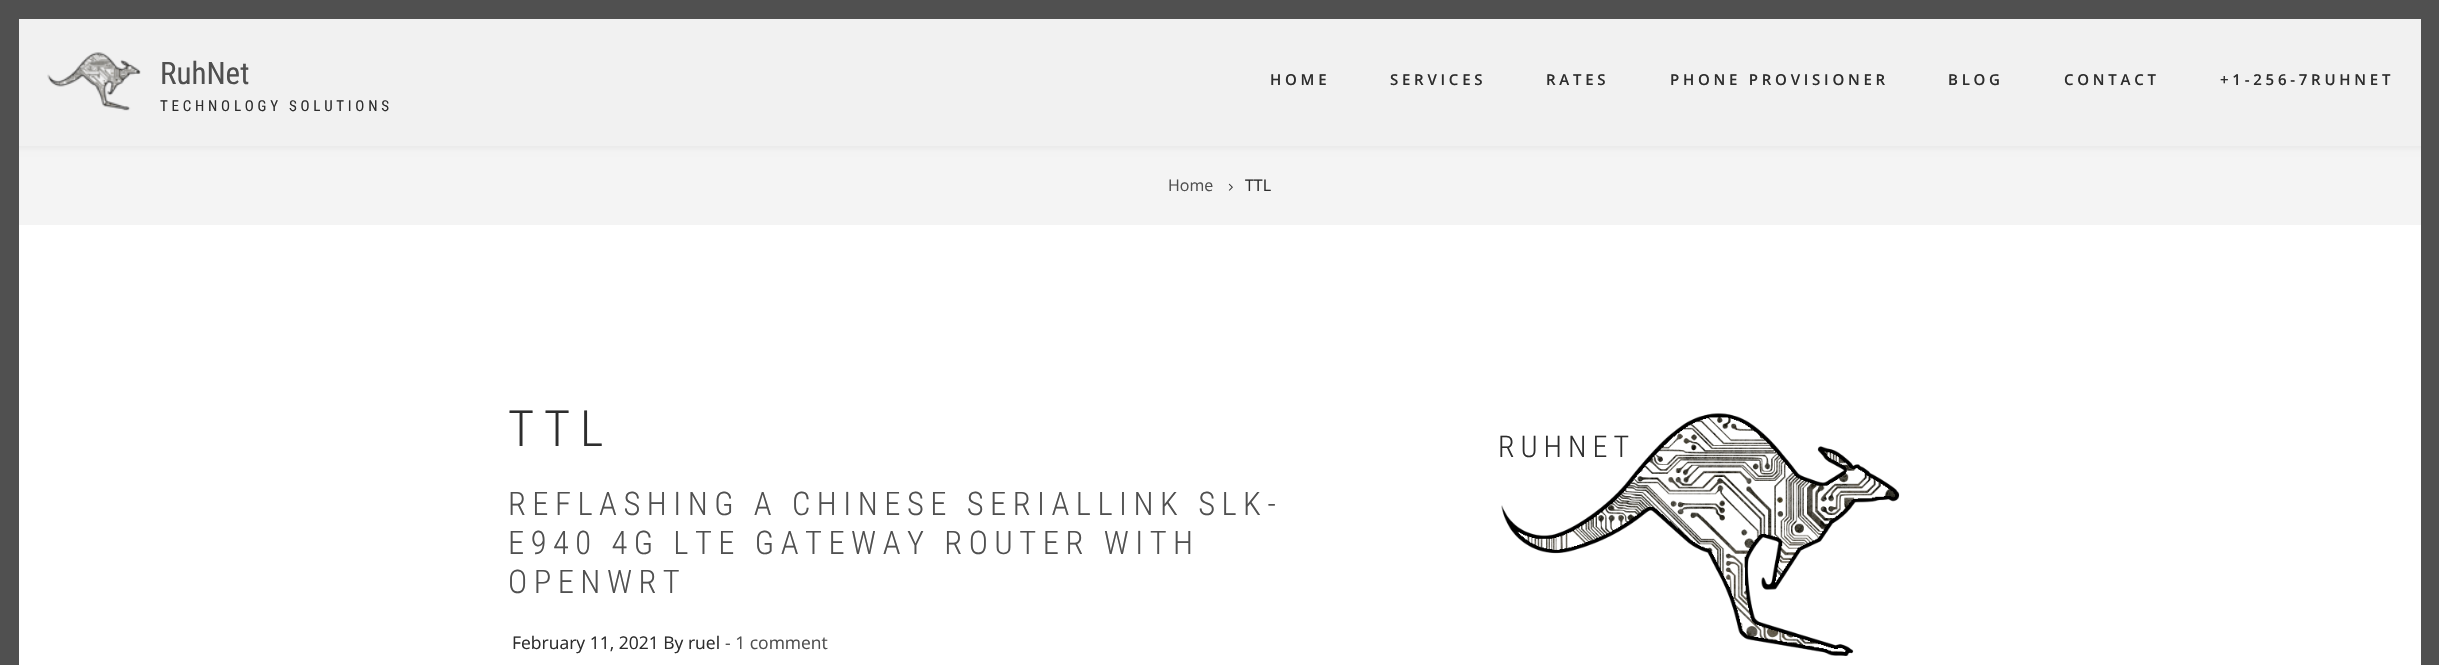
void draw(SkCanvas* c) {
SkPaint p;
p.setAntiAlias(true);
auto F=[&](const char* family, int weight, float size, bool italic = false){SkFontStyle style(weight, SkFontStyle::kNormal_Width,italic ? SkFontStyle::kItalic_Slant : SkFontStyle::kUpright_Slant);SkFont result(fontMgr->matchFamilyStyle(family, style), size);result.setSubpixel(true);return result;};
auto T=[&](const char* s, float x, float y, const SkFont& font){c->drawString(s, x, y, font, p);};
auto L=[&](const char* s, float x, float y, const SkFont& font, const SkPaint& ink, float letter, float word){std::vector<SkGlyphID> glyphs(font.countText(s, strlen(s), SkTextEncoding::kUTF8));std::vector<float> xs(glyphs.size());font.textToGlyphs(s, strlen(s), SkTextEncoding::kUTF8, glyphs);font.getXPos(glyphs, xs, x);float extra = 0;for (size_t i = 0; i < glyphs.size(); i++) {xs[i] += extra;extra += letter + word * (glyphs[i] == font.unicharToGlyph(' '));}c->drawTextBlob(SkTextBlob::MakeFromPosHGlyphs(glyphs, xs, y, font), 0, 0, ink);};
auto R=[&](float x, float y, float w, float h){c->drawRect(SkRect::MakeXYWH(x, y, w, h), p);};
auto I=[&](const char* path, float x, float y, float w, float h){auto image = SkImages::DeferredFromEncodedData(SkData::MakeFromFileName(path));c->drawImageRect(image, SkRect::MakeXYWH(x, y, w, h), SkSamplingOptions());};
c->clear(0xffffffff);
p.setStroke(true);
p.setStrokeWidth(19);
p.setColor(0xff505050);
c->drawRect(SkRect::MakeXYWH(9.5,9.5,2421,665),p);
p.setStroke(false);
p.setColor(0xfff4f4f4);
R(19,146,2402,79);
c->save();
c->clipRect(SkRect::MakeXYWH(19,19,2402,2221));
p.setColor(0x0d000000);
p.setMaskFilter(SkMaskFilter::MakeBlur(kNormal_SkBlurStyle, 3));
c->drawRect(SkRect::MakeXYWH(0,20,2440,128),p);
p.setMaskFilter(nullptr);
c->restore();
p.setColor(0xfff1f1f1);
R(19,19,2402,127);
I("1.png",47,52,94,59);
auto f1 = F("Roboto Condensed",400,31);
p.setColor(0xff505050);
T("RuhNet",160,84,f1);
auto f2 = F("Roboto Condensed",400,15);
p.setColor(0xff2d2d2d);
L("TECHNOLOGY SOLUTIONS",160,111,f2,p,3.75,0);
auto f3 = F("Open Sans",600,15);
L("HOME",1270,85,f3,p,3.75,0);
L("SERVICES",1390,85,f3,p,3.75,0);
L("RATES",1546,85,f3,p,3.75,0);
L("PHONE PROVISIONER",1670,85,f3,p,3.75,0);
L("BLOG",1948,85,f3,p,3.75,0);
L("CONTACT",2064,85,f3,p,3.75,0);
L("+1-256-7RUHNET",2220,85,f3,p,3.75,0);
auto f4 = F("Open Sans",400,16);
p.setColor(0xff505050);
T("Home",1168,191,f4);
I("2.png",1228,183,5,8);
p.setColor(0xff2d2d2d);
T("TTL",1245,191,f4);
auto f5 = F("Roboto Condensed",300,50);
L("TTL",508,446,f5,p,10,0);
auto f6 = F("Roboto Condensed",300,32.5);
p.setColor(0xff505050);
L("REFLASHING A CHINESE SERIALLINK SLK-",508,515,f6,p,6.5,0);
L("E940 4G LTE GATEWAY ROUTER WITH",508,554,f6,p,6.5,0);
L("OPENWRT",508,593,f6,p,6.5,0);
auto f7 = F("Open Sans",400,17.5);
p.setColor(0xff2d2d2d);
T("February 11, 2021 By ruel",512,649,f7);
p.setColor(0xff505050);
T("- 1 comment",725,649,f7);
I("3.png",1501,413,399,243);
auto f8 = F("Roboto Condensed",300,30);
p.setColor(0xff2d2d2d);
L("RUHNET",1498,457,f8,p,6,0);
}
